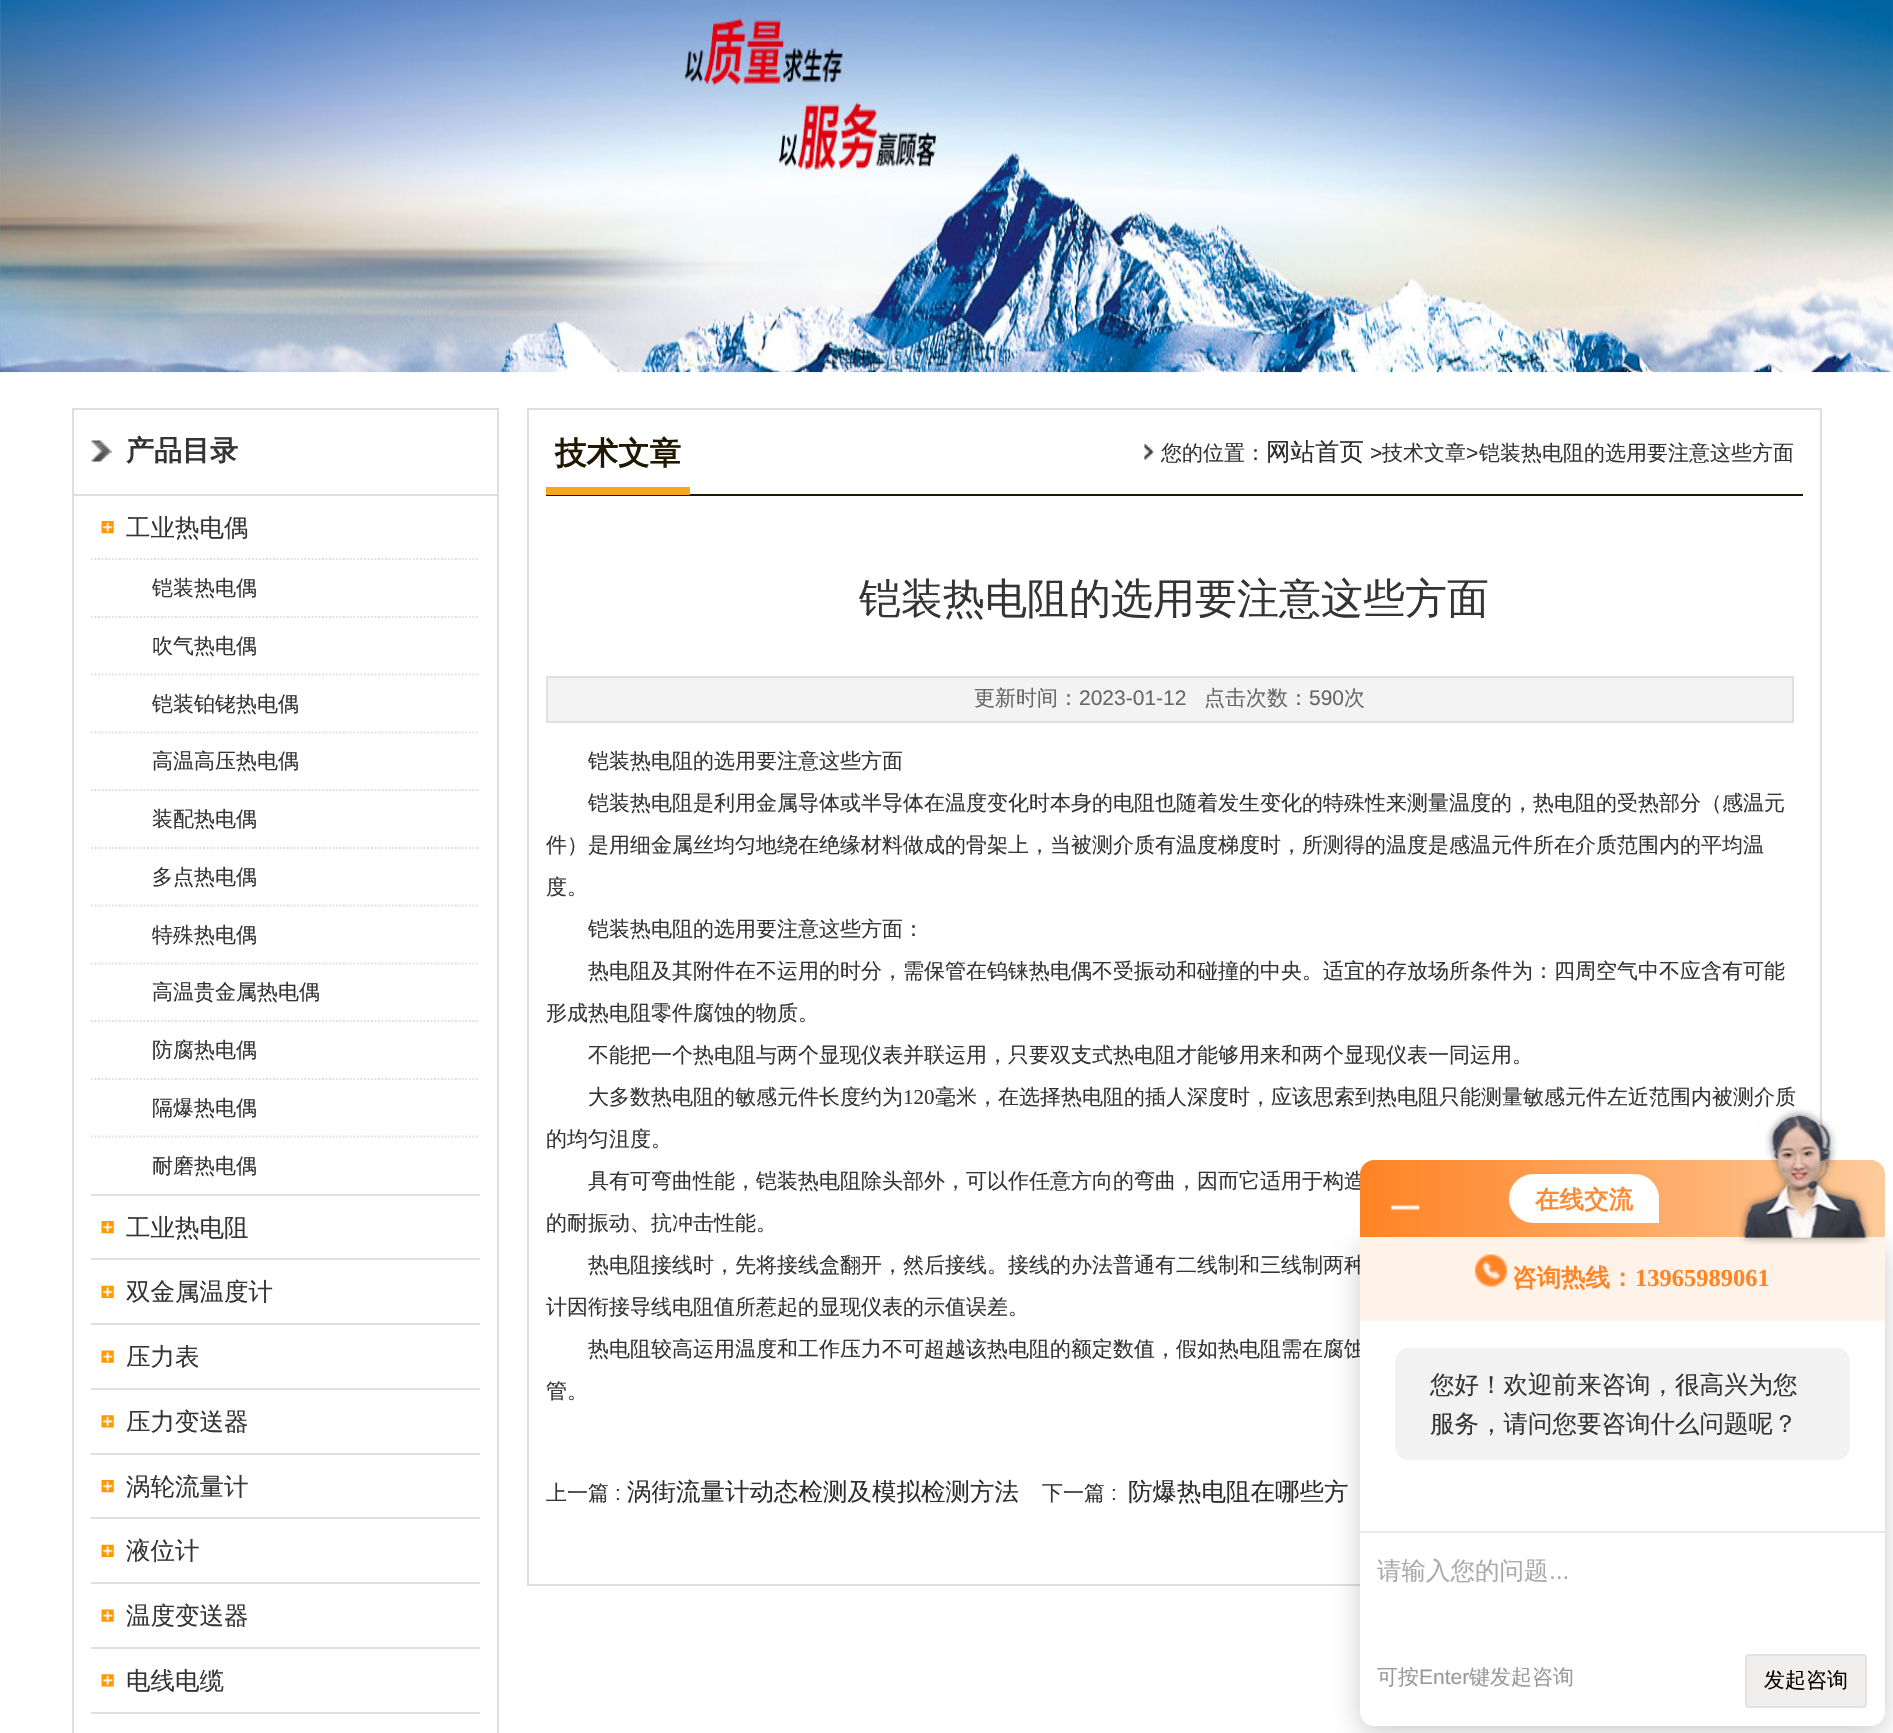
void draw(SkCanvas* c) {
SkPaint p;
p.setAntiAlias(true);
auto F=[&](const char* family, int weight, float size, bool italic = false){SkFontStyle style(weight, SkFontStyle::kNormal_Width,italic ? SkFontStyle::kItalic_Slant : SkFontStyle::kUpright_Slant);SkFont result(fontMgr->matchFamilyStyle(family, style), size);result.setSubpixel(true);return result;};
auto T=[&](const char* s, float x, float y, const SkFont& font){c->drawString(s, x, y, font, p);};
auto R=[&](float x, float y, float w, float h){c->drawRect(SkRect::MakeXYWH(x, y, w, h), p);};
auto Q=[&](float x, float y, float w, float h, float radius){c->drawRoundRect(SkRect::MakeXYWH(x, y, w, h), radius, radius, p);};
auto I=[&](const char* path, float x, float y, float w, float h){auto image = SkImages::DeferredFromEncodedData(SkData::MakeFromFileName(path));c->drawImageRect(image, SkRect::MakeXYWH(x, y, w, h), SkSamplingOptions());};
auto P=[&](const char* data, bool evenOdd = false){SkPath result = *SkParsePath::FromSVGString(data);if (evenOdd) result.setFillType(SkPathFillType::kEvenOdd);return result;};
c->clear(0xffffffff);
I("1.png",0,0,1893,373);
p.setStroke(true);
p.setStrokeWidth(2);
p.setColor(0xffdfdfdf);
c->drawRect(SkRect::MakeXYWH(73,409,425,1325),p);
I("2.png",91,440,21,22);
auto f1 = F("WenQuanYi Zen Hei",700,28);
p.setStroke(false);
p.setColor(0xff343434);
T("产品目录",126,460,f1);
p.setColor(0xffdfdfdf);
R(74,494,423,2);
R(91,1194,389,2);
I("3.png",101,521,13,13);
auto f2 = F("WenQuanYi Zen Hei",500,24.5);
p.setColor(0xff343434);
T("工业热电偶",126,536,f2);
p.setStroke(true);
p.setStrokeWidth(1.8);
p.setColor(0xffdfdfdf);
p.setPathEffect(SkDashPathEffect::Make({{1.75f,1.75f}}, 0));
c->drawPath(P("M91 559h388.5"),p);
p.setPathEffect(nullptr);
auto f3 = F("WenQuanYi Zen Hei",500,21);
p.setStroke(false);
p.setColor(0xff343434);
T("铠装热电偶",152,595,f3);
p.setStroke(true);
p.setColor(0xffdfdfdf);
p.setPathEffect(SkDashPathEffect::Make({{1.75f,1.75f}}, 0));
c->drawPath(P("M91 617h388.5"),p);
p.setPathEffect(nullptr);
p.setStroke(false);
p.setColor(0xff343434);
T("吹气热电偶",152,653,f3);
p.setStroke(true);
p.setColor(0xffdfdfdf);
p.setPathEffect(SkDashPathEffect::Make({{1.75f,1.75f}}, 0));
c->drawPath(P("M91 674.5h388.5"),p);
p.setPathEffect(nullptr);
p.setStroke(false);
p.setColor(0xff343434);
T("铠装铂铑热电偶",152,711,f3);
p.setStroke(true);
p.setColor(0xffdfdfdf);
p.setPathEffect(SkDashPathEffect::Make({{1.75f,1.75f}}, 0));
c->drawPath(P("M91 732.5h388.5"),p);
p.setPathEffect(nullptr);
p.setStroke(false);
p.setColor(0xff343434);
T("高温高压热电偶",152,768,f3);
p.setStroke(true);
p.setColor(0xffdfdfdf);
p.setPathEffect(SkDashPathEffect::Make({{1.75f,1.75f}}, 0));
c->drawPath(P("M91 790h388.5"),p);
p.setPathEffect(nullptr);
p.setStroke(false);
p.setColor(0xff343434);
T("装配热电偶",152,826,f3);
p.setStroke(true);
p.setColor(0xffdfdfdf);
p.setPathEffect(SkDashPathEffect::Make({{1.75f,1.75f}}, 0));
c->drawPath(P("M91 848h388.5"),p);
p.setPathEffect(nullptr);
p.setStroke(false);
p.setColor(0xff343434);
T("多点热电偶",152,884,f3);
p.setStroke(true);
p.setColor(0xffdfdfdf);
p.setPathEffect(SkDashPathEffect::Make({{1.75f,1.75f}}, 0));
c->drawPath(P("M91 905.5h388.5"),p);
p.setPathEffect(nullptr);
p.setStroke(false);
p.setColor(0xff343434);
T("特殊热电偶",152,942,f3);
p.setStroke(true);
p.setColor(0xffdfdfdf);
p.setPathEffect(SkDashPathEffect::Make({{1.75f,1.75f}}, 0));
c->drawPath(P("M91 963.5h388.5"),p);
p.setPathEffect(nullptr);
p.setStroke(false);
p.setColor(0xff343434);
T("高温贵金属热电偶",152,999,f3);
p.setStroke(true);
p.setColor(0xffdfdfdf);
p.setPathEffect(SkDashPathEffect::Make({{1.75f,1.75f}}, 0));
c->drawPath(P("M91 1021h388.5"),p);
p.setPathEffect(nullptr);
p.setStroke(false);
p.setColor(0xff343434);
T("防腐热电偶",152,1057,f3);
p.setStroke(true);
p.setColor(0xffdfdfdf);
p.setPathEffect(SkDashPathEffect::Make({{1.75f,1.75f}}, 0));
c->drawPath(P("M91 1079h388.5"),p);
p.setPathEffect(nullptr);
p.setStroke(false);
p.setColor(0xff343434);
T("隔爆热电偶",152,1115,f3);
p.setStroke(true);
p.setColor(0xffdfdfdf);
p.setPathEffect(SkDashPathEffect::Make({{1.75f,1.75f}}, 0));
c->drawPath(P("M91 1136.5h388.5"),p);
p.setPathEffect(nullptr);
p.setStroke(false);
p.setColor(0xff343434);
T("耐磨热电偶",152,1173,f3);
p.setColor(0xffdfdfdf);
R(91,1258,389,2);
I("3.png",101,1221,13,13);
p.setColor(0xff343434);
T("工业热电阻",126,1236,f2);
p.setColor(0xffdfdfdf);
R(91,1323,389,2);
I("4.png",101,1285,13,13);
p.setColor(0xff343434);
T("双金属温度计",126,1300,f2);
p.setColor(0xffdfdfdf);
R(91,1388,389,2);
I("5.png",101,1350,13,13);
p.setColor(0xff343434);
T("压力表",126,1365,f2);
p.setColor(0xffdfdfdf);
R(91,1453,389,2);
I("6.png",101,1415,13,13);
p.setColor(0xff343434);
T("压力变送器",126,1430,f2);
p.setColor(0xffdfdfdf);
R(91,1517,389,2);
I("3.png",101,1480,13,13);
p.setColor(0xff343434);
T("涡轮流量计",126,1495,f2);
p.setColor(0xffdfdfdf);
R(91,1582,389,2);
I("4.png",101,1544,13,13);
p.setColor(0xff343434);
T("液位计",126,1559,f2);
p.setColor(0xffdfdfdf);
R(91,1647,389,2);
I("5.png",101,1609,13,13);
p.setColor(0xff343434);
T("温度变送器",126,1624,f2);
p.setColor(0xffdfdfdf);
R(91,1712,389,2);
I("6.png",101,1674,13,13);
p.setColor(0xff343434);
T("电线电缆",126,1689,f2);
p.setStroke(true);
p.setStrokeWidth(2);
p.setColor(0xffdfdfdf);
c->drawRect(SkRect::MakeXYWH(528,409,1293,1176),p);
p.setStroke(false);
p.setColor(0xff201800);
R(546,494,1257,2);
p.setColor(0xfff9a61a);
R(546,487,144,8);
auto f4 = F("WenQuanYi Zen Hei",700,31.5);
p.setColor(0xff201800);
T("技术文章",555,464,f4);
I("7.png",1144,444,10,16);
p.setColor(0xff343434);
T("您的位置：",1161,460,f3);
p.setColor(0xff2d2d2e);
T("网站首页",1266,460,f2);
auto f5 = F("Liberation Sans",400,21);
p.setColor(0xff343434);
T(">",1370,460,f5);
T("技术文章",1382,460,f3);
T(">",1466,460,f5);
T("铠装热电阻的选用要注意这些方面",1479,460,f3);
auto f6 = F("WenQuanYi Zen Hei",500,42);
T("铠装热电阻的选用要注意这些方面",859,613,f6);
p.setColor(0xfff3f3f3);
c->drawRect(SkRect::MakeXYWH(547,677,1246,45),p);
p.setStroke(true);
p.setColor(0xffdfdfdf);
c->drawRect(SkRect::MakeXYWH(547,677,1246,45),p);
p.setStroke(false);
p.setColor(0xff666666);
T("更新时间：",974,705,f3);
T("2023-01-12",1079,705,f5);
T("点击次数：",1204,705,f3);
T("590",1309,705,f5);
T("次",1344,705,f3);
p.setColor(0xff343434);
T("铠装热电阻的选用要注意这些方面",588,768,f3);
T("铠装热电阻是利用金属导体或半导体在温度变化时本身的电阻也随着发生变化的特殊性来测量温度的，热电阻的受热部分（感温元",588,810,f3);
T("件）是用细金属丝均匀地绕在绝缘材料做成的骨架上，当被测介质有温度梯度时，所测得的温度是感温元件所在介质范围内的平均温",546,852,f3);
T("度。",546,894,f3);
T("铠装热电阻的选用要注意这些方面：",588,936,f3);
T("热电阻及其附件在不运用的时分，需保管在钨铼热电偶不受振动和碰撞的中央。适宜的存放场所条件为：四周空气中不应含有可能",588,978,f3);
T("形成热电阻零件腐蚀的物质。",546,1020,f3);
T("不能把一个热电阻与两个显现仪表并联运用，只要双支式热电阻才能够用来和两个显现仪表一同运用。",588,1062,f3);
T("大多数热电阻的敏感元件长度约为",588,1104,f3);
auto f7 = F("Liberation Serif",400,21);
T("120",903,1104,f7);
T("毫米，在选择热电阻的插人深度时，应该思索到热电阻只能测量敏感元件左近范围内被测介质",935,1104,f3);
T("的均匀沮度。",546,1146,f3);
T("具有可弯曲性能，铠装热电阻除头部外，可以作任意方向的弯曲，因而它适用于构造",588,1188,f3);
T("的耐振动、抗冲击性能。",546,1230,f3);
T("热电阻接线时，先将接线盒翻开，然后接线。接线的办法普通有二线制和三线制两种",588,1272,f3);
T("计因衔接导线电阻值所惹起的显现仪表的示值误差。",546,1314,f3);
T("热电阻较高运用温度和工作压力不可超越该热电阻的额定数值，假如热电阻需在腐蚀",588,1356,f3);
T("管。",546,1398,f3);
T("上一篇",546,1500,f3);
T(":",615,1500,f5);
p.setColor(0xff2d2d2e);
T("涡街流量计动态检测及模拟检测方法",627,1500,f2);
p.setColor(0xff343434);
T("下一篇",1042,1500,f3);
T(":",1111,1500,f5);
p.setColor(0xff2d2d2e);
T("防爆热电阻在哪些方",1128,1500,f2);
p.setColor(0x33000000);
p.setMaskFilter(SkMaskFilter::MakeBlur(kNormal_SkBlurStyle, 14));
c->drawRoundRect(SkRect::MakeXYWH(1360,1244,525,489),14,14,p);
p.setMaskFilter(nullptr);
{
const SkColor colors[] = {0xffff8324,0xfffecb9c};
const float stops[] = {0,1};
const SkPoint ends[] = {{1360,1199}, {1885,1199}};
p.setShader(SkGradientShader::MakeLinear(ends, colors, stops, 2, SkTileMode::kClamp));
p.setAlpha(255);
}
c->drawPath(P("M1374 1160h497c7.5 0 14 6.5 14 14v63h-525v-63c0-7.5 6.5-14 14-14z"),p);
I("8.png",1391,1204,29,7);
p.setShader(nullptr);
p.setColor(0xffffffff);
c->drawPath(P("M1533.5 1174h101c13.5 0 24.5 11 24.5 24.5v24.5h-125.5c-13.5 0-24.5-11-24.5-24.5c0-13.5 11-24.5 24.5-24.5z"),p);
auto f8 = F("WenQuanYi Zen Hei",700,24.5);
p.setColor(0xfffb8b36);
T("在线交流",1535,1208,f8);
p.setColor(0xffffffff);
c->drawPath(P("M1360 1237h525v475c0 7.5-6.5 14-14 14h-497c-7.5 0-14-6.5-14-14z"),p);
p.setColor(0xfffff3e9);
R(1360,1237,525,84);
I("9.png",1738,1109,134,136);
I("10.png",1475,1254,33,33);
p.setColor(0xffff8426);
T("咨询热线：",1512,1286,f8);
auto f9 = F("Liberation Serif",700,24.5);
T("13965989061",1635,1286,f9);
p.setColor(0xfff2f2f2);
Q(1395,1348,455,112,14);
p.setColor(0xff343434);
T("您好！欢迎前来咨询，很高兴为您",1430,1393,f2);
T("服务，请问您要咨询什么问题呢？",1430,1432,f2);
p.setColor(0xffeaeaea);
R(1360,1531,525,2);
p.setColor(0xffaaaaaa);
T("请输入您的问题",1377,1579,f2);
auto f10 = F("Liberation Sans",400,24.5);
T("...",1549,1579,f10);
p.setColor(0xff999999);
T("可按",1377,1684,f3);
T("Enter",1419,1684,f5);
T("键发起咨询",1469,1684,f3);
p.setColor(0xfff0efed);
c->drawRoundRect(SkRect::MakeXYWH(1746,1655,120,52),3,3,p);
p.setStroke(true);
p.setColor(0xffe2e2e2);
c->drawRoundRect(SkRect::MakeXYWH(1746,1655,120,52),3,3,p);
p.setStroke(false);
p.setColor(0xff000000);
T("发起咨询",1764,1687,f3);
}
